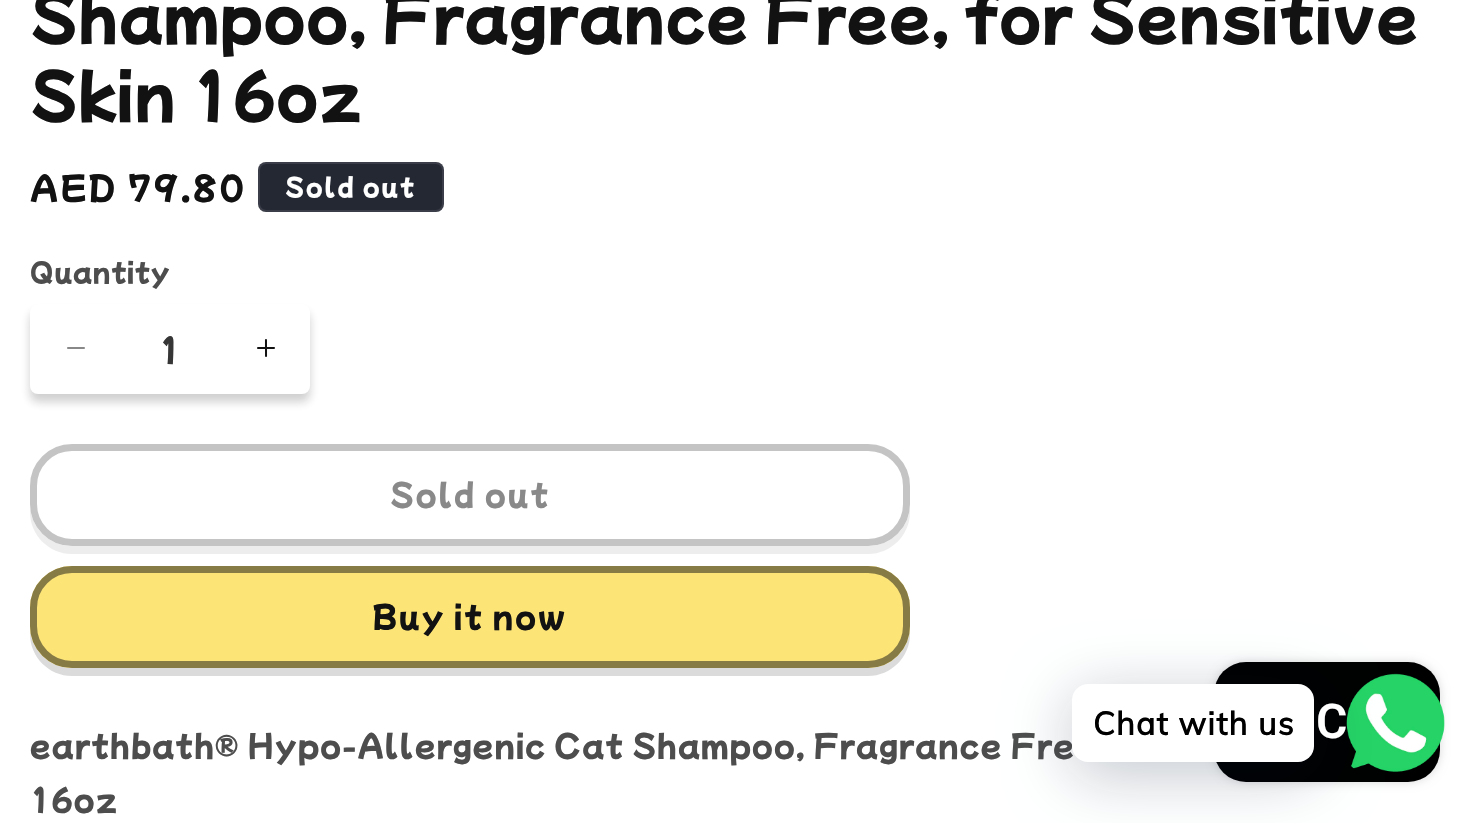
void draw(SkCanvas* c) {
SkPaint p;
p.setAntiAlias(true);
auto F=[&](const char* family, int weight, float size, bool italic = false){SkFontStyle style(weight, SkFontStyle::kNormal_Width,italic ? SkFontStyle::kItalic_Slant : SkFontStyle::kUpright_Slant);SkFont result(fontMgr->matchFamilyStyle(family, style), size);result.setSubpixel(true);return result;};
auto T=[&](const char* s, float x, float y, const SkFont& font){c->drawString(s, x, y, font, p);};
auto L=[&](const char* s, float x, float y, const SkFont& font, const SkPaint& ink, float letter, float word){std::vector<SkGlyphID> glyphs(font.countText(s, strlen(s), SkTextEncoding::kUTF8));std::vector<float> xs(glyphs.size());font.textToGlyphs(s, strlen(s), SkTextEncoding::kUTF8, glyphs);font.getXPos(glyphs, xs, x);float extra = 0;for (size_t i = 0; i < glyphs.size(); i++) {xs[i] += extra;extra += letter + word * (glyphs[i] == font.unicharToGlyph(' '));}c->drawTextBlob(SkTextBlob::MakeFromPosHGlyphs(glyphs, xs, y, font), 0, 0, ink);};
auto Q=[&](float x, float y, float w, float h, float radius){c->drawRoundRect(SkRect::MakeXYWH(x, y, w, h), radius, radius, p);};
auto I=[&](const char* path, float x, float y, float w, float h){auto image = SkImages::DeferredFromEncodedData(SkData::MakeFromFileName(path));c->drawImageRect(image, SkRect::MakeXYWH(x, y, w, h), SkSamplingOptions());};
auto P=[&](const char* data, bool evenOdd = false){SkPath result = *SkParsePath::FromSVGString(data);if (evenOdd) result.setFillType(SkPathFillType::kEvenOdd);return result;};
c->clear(0xffffffff);
auto f1 = F("Mochiy Pop P One",400,60);
p.setColor(0xff121212);
L("Shampoo, Fragrance Free, for Sensitive",30,40,f1,p,1.2,0);
L("Skin 16oz",30,118,f1,p,1.2,0);
auto f2 = F("Mochiy Pop P One",400,32);
L("AED 79.80",30,200,f2,p,2.5,0);
p.setColor(0xff242833);
Q(258,162,186,50,8);
p.setStroke(true);
p.setStrokeWidth(2);
p.setColor(0x1affffff);
c->drawRoundRect(SkRect::MakeXYWH(259,163,184,48),7,7,p);
auto f3 = F("Mochiy Pop P One",400,24);
p.setStroke(false);
p.setColor(0xffffffff);
L("Sold out",285,196,f3,p,2,0);
auto f4 = F("Mochiy Pop P One",400,26);
p.setColor(0xff4d4d4d);
L("Quantity",30,282,f4,p,.75,0);
p.setColor(0x33121212);
p.setMaskFilter(SkMaskFilter::MakeBlur(kNormal_SkBlurStyle, 5));
c->drawRoundRect(SkRect::MakeXYWH(30,312,280,90),8,8,p);
p.setMaskFilter(nullptr);
p.setColor(0xffffffff);
Q(30,304,280,90,8);
I("1.png",67,347,18,2);
p.setColor(0xff363636);
T("1",159,362,f2);
I("2.png",257,339,18,18);
p.setColor(0xffededed);
c->drawPath(P("M30 504v8c0 23 19 42 42 42h796c23 0 42-19 42-42v-8c0 23-19 42-42 42h-796c-23 0-42-19-42-42z"),p);
p.setStroke(true);
p.setStrokeWidth(6);
p.setColor(0xffffffff);
c->drawRoundRect(SkRect::MakeXYWH(33,447,874,96),39,39,p);
p.setStrokeWidth(7);
p.setColor(0x80898989);
c->drawRoundRect(SkRect::MakeXYWH(33.5,447.5,873,95),38.5,38.5,p);
auto f5 = F("Mochiy Pop P One",400,30);
p.setStroke(false);
p.setColor(0xff898989);
L("Sold out",390,506,f5,p,2,0);
p.setColor(0xffdbdbdb);
c->drawPath(P("M30 626v8c0 23 19 42 42 42h796c23 0 42-19 42-42v-8c0 23-19 42-42 42h-796c-23 0-42-19-42-42z"),p);
p.setColor(0xfffce477);
Q(30,566,880,102,42);
p.setStroke(true);
p.setStrokeWidth(6);
c->drawRoundRect(SkRect::MakeXYWH(33,569,874,96),39,39,p);
p.setStrokeWidth(7);
p.setColor(0x80121212);
c->drawRoundRect(SkRect::MakeXYWH(33.5,569.5,873,95),38.5,38.5,p);
p.setStroke(false);
p.setColor(0xff121212);
L("Buy it now",372,628,f5,p,2,0);
p.setColor(0xff4d4d4d);
L("earthbath® Hypo-Allergenic Cat Shampoo, Fragrance Fre",30,757,f5,p,1.2,0);
L("16oz",30,811,f5,p,1.2,0);
p.setColor(0x26000000);
p.setMaskFilter(SkMaskFilter::MakeBlur(kNormal_SkBlurStyle, 5));
c->drawRoundRect(SkRect::MakeXYWH(1214,662,226,120),32,32,p);
p.setMaskFilter(nullptr);
p.setColor(0xff000000);
Q(1214,662,226,120,32);
I("3.png",1346,673,99,99);
p.setColor(0x3d00122e);
p.setMaskFilter(SkMaskFilter::MakeBlur(kNormal_SkBlurStyle, 32));
c->drawRoundRect(SkRect::MakeXYWH(1072,696,242,78),16,16,p);
p.setMaskFilter(nullptr);
p.setColor(0xffffffff);
Q(1072,684,242,78,16);
auto f6 = F("Muli",700,32);
p.setColor(0xff000000);
L("Chat with us",1093,735,f6,p,1.2,0);
auto f7 = F("Roboto",600,48);
p.setColor(0xffffffff);
T("C",1316,738,f7);
}
